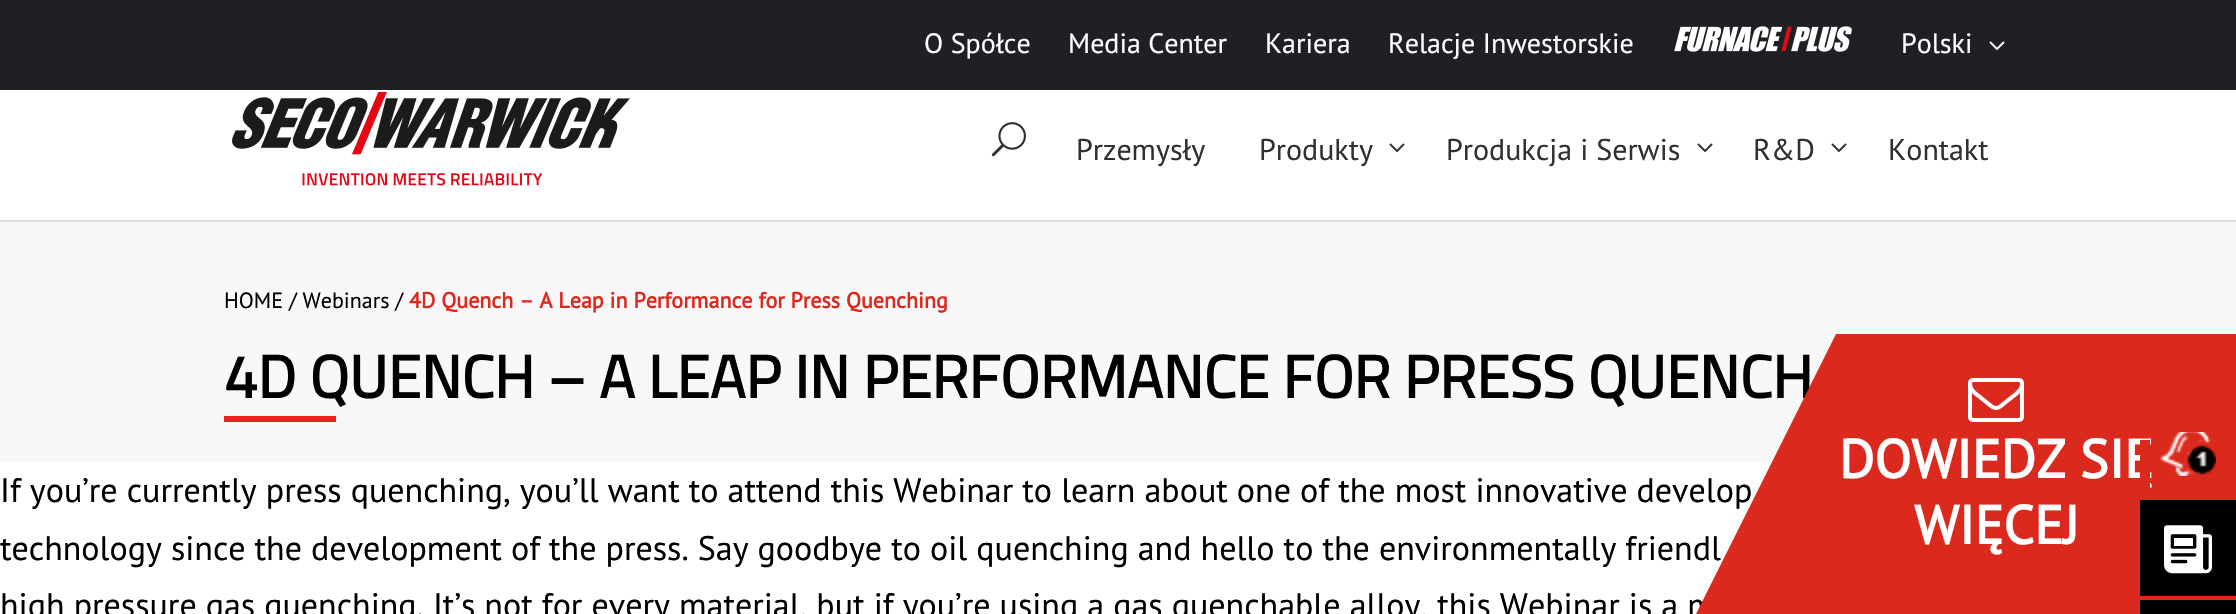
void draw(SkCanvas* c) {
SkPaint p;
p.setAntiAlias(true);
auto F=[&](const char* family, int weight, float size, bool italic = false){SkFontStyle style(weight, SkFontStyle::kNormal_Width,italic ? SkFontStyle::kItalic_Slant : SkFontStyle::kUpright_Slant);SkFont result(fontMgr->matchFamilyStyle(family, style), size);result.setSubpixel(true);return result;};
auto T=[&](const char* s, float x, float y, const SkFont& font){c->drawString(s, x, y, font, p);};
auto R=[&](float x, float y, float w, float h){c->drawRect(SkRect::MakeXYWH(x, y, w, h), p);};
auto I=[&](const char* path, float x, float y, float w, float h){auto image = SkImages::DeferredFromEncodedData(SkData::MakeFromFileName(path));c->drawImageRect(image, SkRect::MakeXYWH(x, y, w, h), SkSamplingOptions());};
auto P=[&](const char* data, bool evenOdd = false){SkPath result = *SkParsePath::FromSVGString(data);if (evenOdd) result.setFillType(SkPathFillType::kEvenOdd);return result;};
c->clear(0xfff8f8f8);
p.setColor(0xff1f1f26);
R(0,0,2236,90);
auto f1 = F("PT Sans",400,28);
p.setColor(0xffffffff);
T("O Spółce",924,53,f1);
T("Media Center",1068,53,f1);
T("Kariera",1265,53,f1);
T("Relacje Inwestorskie",1388,53,f1);
I("1.png",1674,26,178,26);
T("Polski",1901,53,f1);
I("2.png",1989,41,16,9);
p.setColor(0xffdfdfdf);
R(0,220,2236,2);
p.setColor(0xffffffff);
R(0,90,2236,130);
I("3.png",232,92,398,94);
I("4.png",991,122,35,35);
auto f2 = F("PT Sans",400,30);
p.setColor(0xff303030);
T("Przemysły",1076,160,f2);
T("Produkty",1259,160,f2);
I("5.png",1389,143,16,9);
T("Produkcja i Serwis",1446,160,f2);
I("5.png",1697,143,16,9);
T("R&D",1753,160,f2);
I("5.png",1831,143,16,9);
T("Kontakt",1888,160,f2);
p.setColor(0xffffffff);
R(0,462,1772,152);
auto f3 = F("PT Sans",400,22);
p.setColor(0xff000000);
T("HOME / Webinars /",224,308,f3);
auto f4 = F("PT Sans",700,22);
p.setColor(0xffdc291e);
T("4D Quench – A Leap in Performance for Press Quenching",409,308,f4);
auto f5 = F("Titillium Web",700,60);
p.setColor(0xff000000);
T("4D QUENCH – A LEAP IN PERFORMANCE FOR PRESS QUENCH",224,398,f5);
p.setColor(0xffdc291e);
R(224,416,112,6);
auto f6 = F("PT Sans",400,34);
p.setColor(0xff000000);
T("If you’re currently press quenching, you’ll want to attend this Webinar to learn about one of the most innovative develop",0,502,f6);
T("technology since the development of the press. Say goodbye to oil quenching and hello to the environmentally friendl",0,560,f6);
T("high pressure gas quenching. It’s not for every material, but if you’re using a gas quenchable alloy, this Webinar is a m",0,617,f6);
p.setColor(0xffdc291e);
R(1836,334,400,280);
c->drawPath(P("M1836 334v280h-140z"),p);
I("6.png",1968,378,56,44);
auto f7 = F("PT Sans",700,54);
p.setColor(0xffffffff);
T("DOWIEDZ SIĘ",1839,478,f7);
T("WIĘCEJ",1914,544,f7);
p.setColor(0xffdc291e);
R(2140,440,10,49);
I("7.png",2160,432,56,44);
p.setColor(0xff000000);
R(2140,500,96,96);
I("8.png",2164,525,48,49);
R(2140,600,96,14);
}
